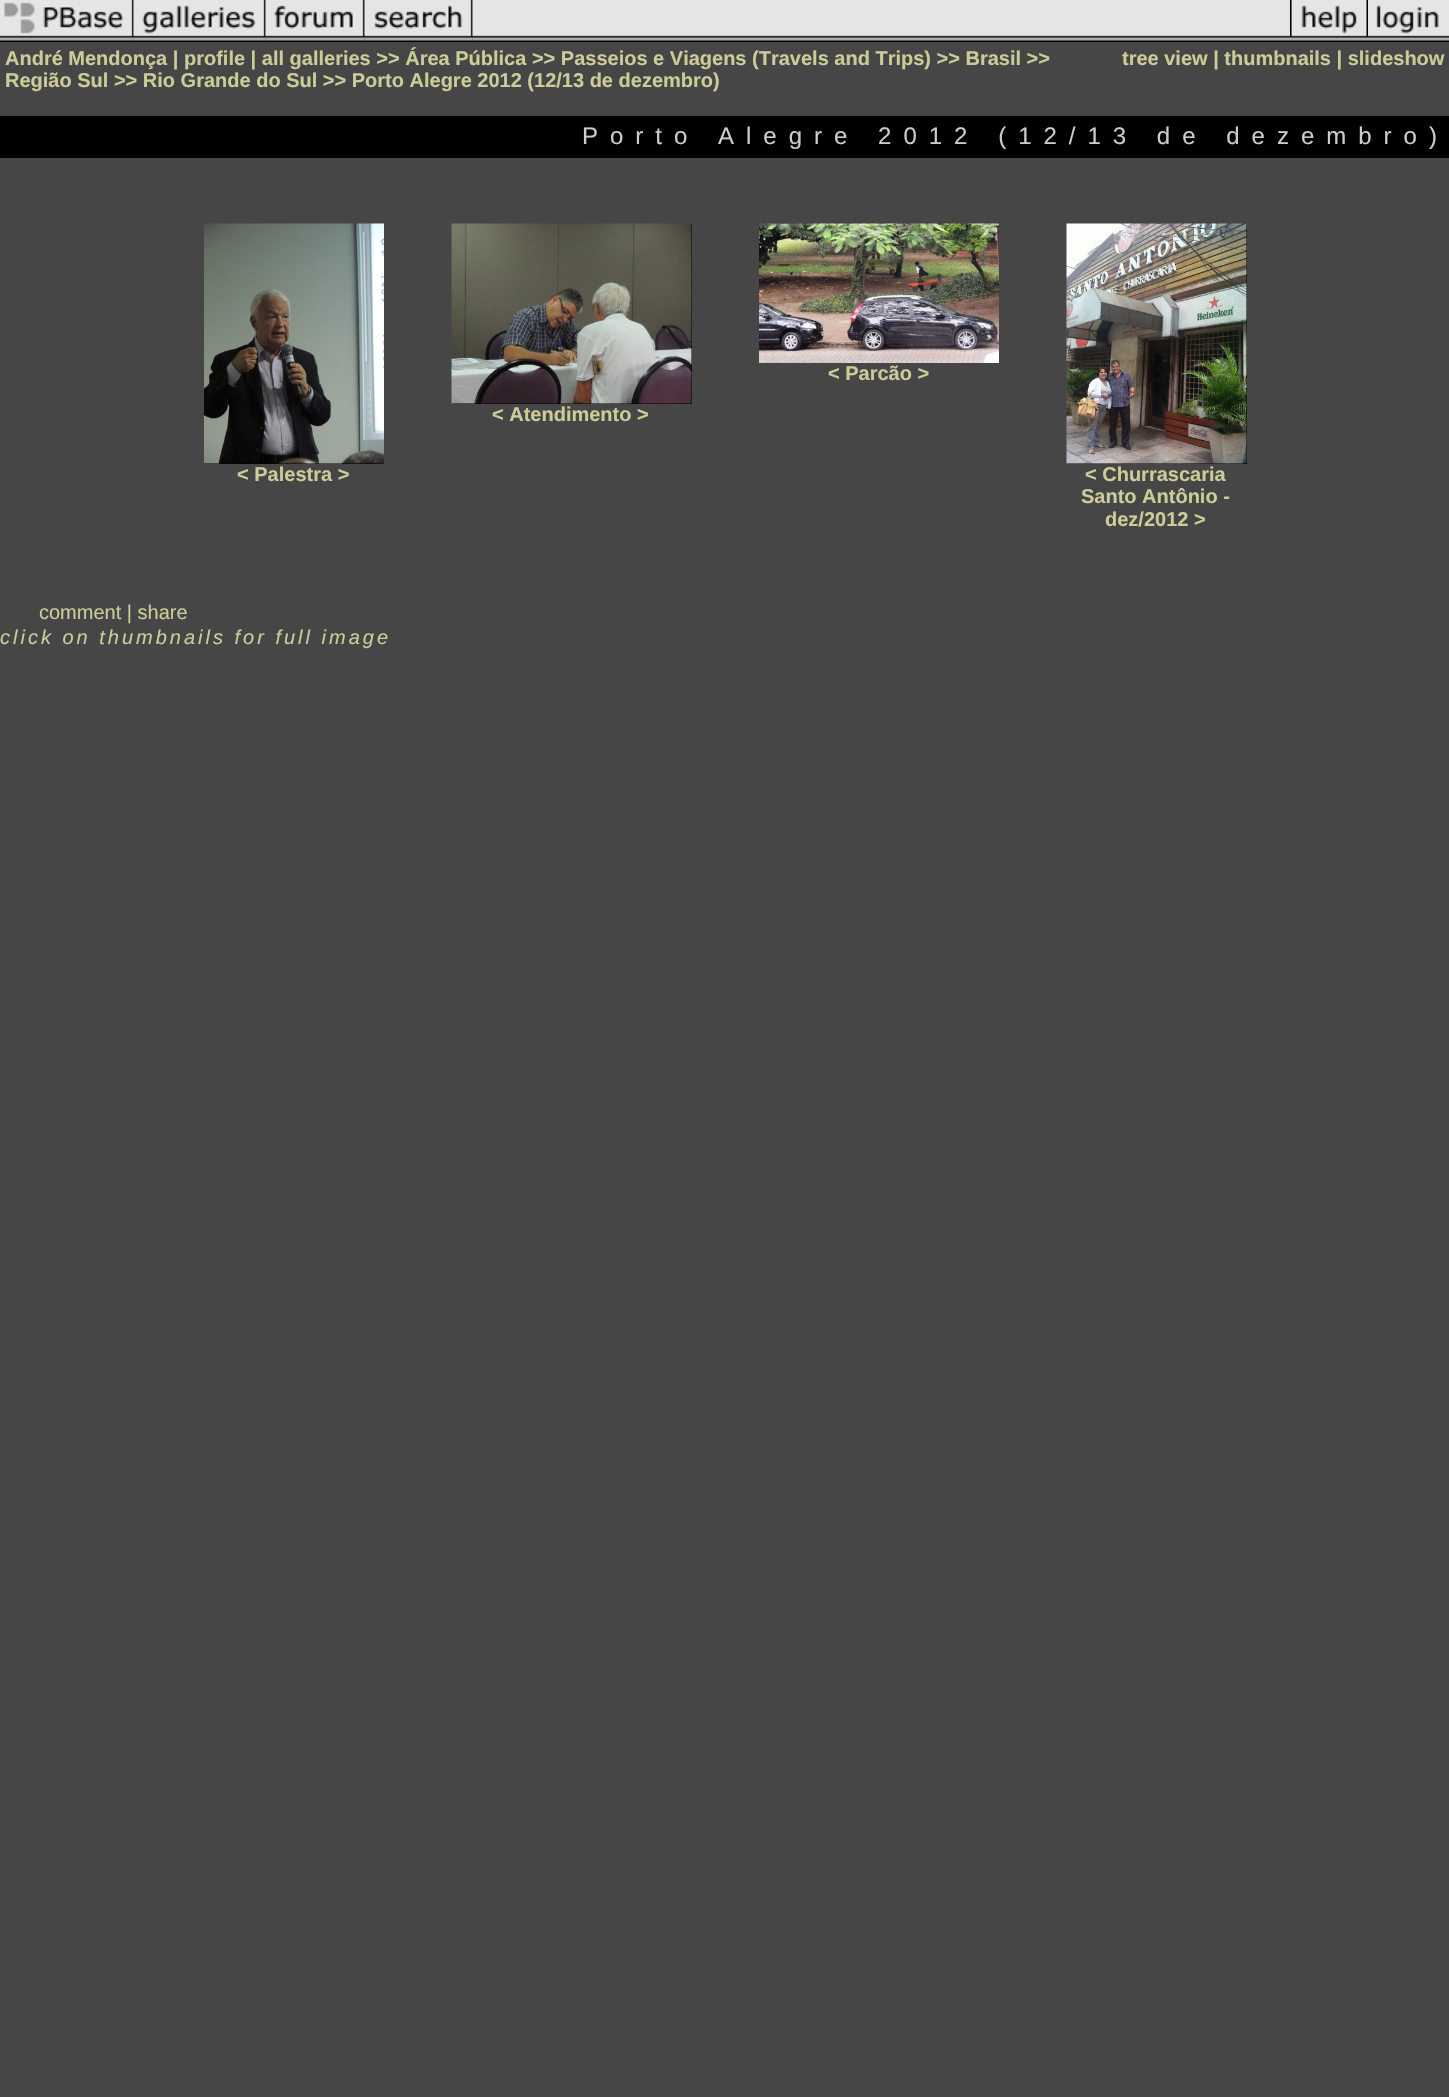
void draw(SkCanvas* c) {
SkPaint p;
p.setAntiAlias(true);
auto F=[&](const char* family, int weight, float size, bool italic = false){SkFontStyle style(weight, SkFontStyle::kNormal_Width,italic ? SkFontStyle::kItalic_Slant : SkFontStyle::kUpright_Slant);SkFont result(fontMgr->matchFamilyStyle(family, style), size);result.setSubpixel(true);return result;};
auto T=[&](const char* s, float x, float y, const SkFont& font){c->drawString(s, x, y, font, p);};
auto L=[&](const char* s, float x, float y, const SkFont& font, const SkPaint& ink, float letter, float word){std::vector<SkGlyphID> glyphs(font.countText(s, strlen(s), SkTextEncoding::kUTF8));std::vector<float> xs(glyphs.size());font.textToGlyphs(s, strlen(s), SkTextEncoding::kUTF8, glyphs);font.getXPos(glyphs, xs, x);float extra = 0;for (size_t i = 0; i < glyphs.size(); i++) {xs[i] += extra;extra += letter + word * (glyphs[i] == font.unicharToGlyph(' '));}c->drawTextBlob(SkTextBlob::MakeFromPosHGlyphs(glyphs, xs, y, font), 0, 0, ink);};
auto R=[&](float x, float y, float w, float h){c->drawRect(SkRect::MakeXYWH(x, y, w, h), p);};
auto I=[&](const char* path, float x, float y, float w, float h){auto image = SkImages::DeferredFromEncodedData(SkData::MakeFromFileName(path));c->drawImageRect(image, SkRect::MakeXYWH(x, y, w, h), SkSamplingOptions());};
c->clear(0xff464646);
I("1.png",0,0,134,42);
I("2.png",133,0,133,42);
I("3.png",265,0,100,42);
I("4.png",364,0,109,42);
I("5.png",472,0,818,42);
I("6.png",1290,0,78,42);
I("7.png",1368,0,81,42);
auto f1 = F("Liberation Sans",700,20);
p.setColor(0xffcccc99);
T("André Mendonça | profile | all galleries >> Área Pública >> Passeios e Viagens (Travels and Trips) >> Brasil >>",5,65,f1);
T("Região Sul >> Rio Grande do Sul >> Porto Alegre 2012 (12/13 de dezembro)",5,87,f1);
T("tree view | thumbnails | slideshow",1122,65,f1);
p.setColor(0xff000000);
R(0,116,1449,42);
auto f2 = F("Liberation Sans",400,24);
p.setColor(0xffcccccc);
L("Porto Alegre 2012 (12/13 de dezembro)",582,144,f2,p,12,0);
I("8.png",759,223,240,140);
p.setColor(0xffcccc99);
T("< Parcão >",828,380,f1);
p.setColor(0xff000000);
R(452,224,240,180);
I("9.png",451,223,241,181);
p.setColor(0xffcccc99);
T("< Atendimento >",492,421,f1);
p.setColor(0xff000000);
R(204,463,180,1);
I("10.png",204,223,180,241);
p.setColor(0xffcccc99);
T("< Palestra >",237,481,f1);
p.setColor(0xff000000);
R(1067,224,180,240);
I("11.png",1066,223,181,241);
p.setColor(0xffcccc99);
T("< Churrascaria",1085,481,f1);
T("Santo Antônio -",1081,503,f1);
T("dez/2012 >",1105,526,f1);
auto f3 = F("Liberation Sans",400,20);
T("comment | share",39,619,f3);
auto f4 = F("Liberation Sans",400,20,true);
L("click on thumbnails for full image",0,644,f4,p,3,0);
}
